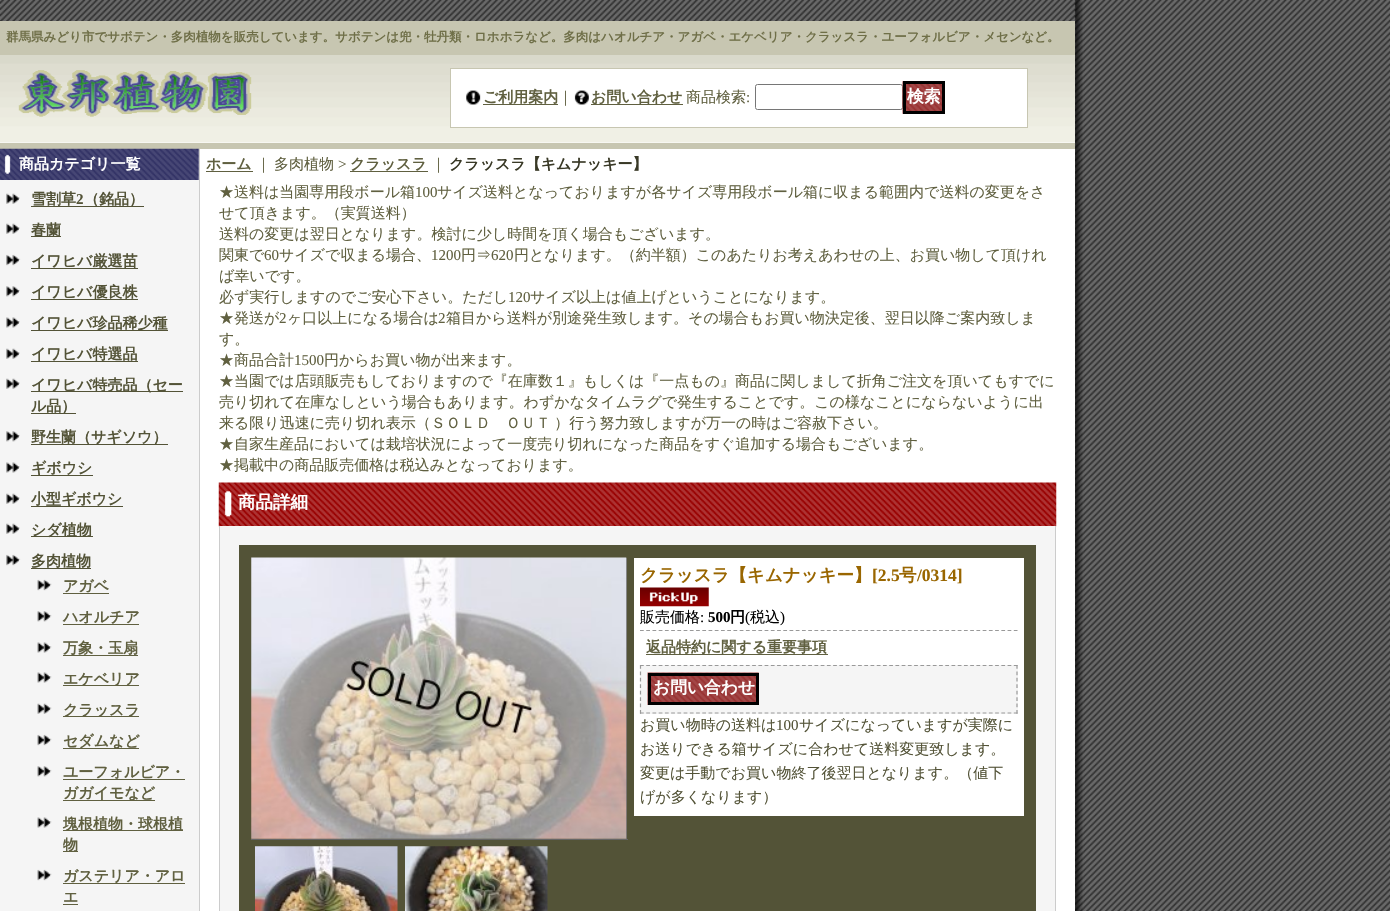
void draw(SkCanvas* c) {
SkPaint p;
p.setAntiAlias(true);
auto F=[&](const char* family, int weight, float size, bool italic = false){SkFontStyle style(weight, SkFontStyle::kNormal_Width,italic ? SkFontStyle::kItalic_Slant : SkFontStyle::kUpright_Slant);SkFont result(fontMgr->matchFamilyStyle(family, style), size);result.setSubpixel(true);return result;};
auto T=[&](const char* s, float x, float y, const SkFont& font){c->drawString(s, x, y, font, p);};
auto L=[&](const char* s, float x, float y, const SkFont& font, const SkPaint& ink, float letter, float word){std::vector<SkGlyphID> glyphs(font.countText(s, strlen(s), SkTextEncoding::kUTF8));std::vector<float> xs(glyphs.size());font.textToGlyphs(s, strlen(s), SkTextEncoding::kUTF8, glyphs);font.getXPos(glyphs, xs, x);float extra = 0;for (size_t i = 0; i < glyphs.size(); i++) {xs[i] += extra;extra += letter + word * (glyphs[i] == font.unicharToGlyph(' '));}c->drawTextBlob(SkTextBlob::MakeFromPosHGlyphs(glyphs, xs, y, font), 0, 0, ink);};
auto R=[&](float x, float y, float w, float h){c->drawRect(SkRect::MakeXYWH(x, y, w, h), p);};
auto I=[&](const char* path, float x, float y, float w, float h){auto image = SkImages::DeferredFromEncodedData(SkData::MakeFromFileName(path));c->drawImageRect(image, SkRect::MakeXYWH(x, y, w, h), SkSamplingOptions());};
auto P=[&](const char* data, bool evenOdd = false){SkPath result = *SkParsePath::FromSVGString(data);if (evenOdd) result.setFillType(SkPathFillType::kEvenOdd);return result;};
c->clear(0xffffffff);
I("1.png",0,0,1390,911);
p.setColor(0xffffffff);
R(0,142,1075,769);
p.setColor(0xffc7c6b1);
R(0,21,1075,34);
auto f1 = F("WenQuanYi Zen Hei",700,12.5);
p.setColor(0xff6f6f48);
T("群馬県みどり市でサボテン・多肉植物を販売しています。サボテンは兜・牡丹類・ロホホラなど。多肉はハオルチア・アガベ・エケベリア・クラッスラ・ユーフォルビア・メセンなど。",6,41,f1);
I("2.png",0,55,1075,88);
I("3.png",18,70,234,47);
p.setColor(0xffffffff);
c->drawRect(SkRect::MakeXYWH(450.5,68.5,577,59),p);
p.setStroke(true);
p.setStrokeWidth(1);
p.setColor(0xffc7c6b1);
c->drawRect(SkRect::MakeXYWH(450.5,68.5,577,59),p);
I("4.png",466,90,15,15);
p.setStroke(false);
p.setColor(0xff606040);
R(483,104,75,1);
auto f2 = F("WenQuanYi Zen Hei",700,15);
T("ご利用案内",483,102,f2);
auto f3 = F("WenQuanYi Zen Hei",500,15);
T("｜",558,102,f3);
I("5.png",574,90,15,15);
R(591,104,92,1);
T("お問い合わせ",591,102,f2);
T("商品検索",686,102,f3);
auto f4 = F("Liberation Serif",400,15);
T(":",746,102,f4);
p.setStroke(true);
p.setColor(0xff767676);
c->drawRoundRect(SkRect::MakeXYWH(755.5,84.5,147,25),2,2,p);
I("6.png",902,81,40,33);
p.setStrokeWidth(3);
p.setColor(0xff000000);
c->drawRect(SkRect::MakeXYWH(904.5,82.5,39,30),p);
auto f5 = F("WenQuanYi Zen Hei",700,16.75);
p.setStroke(false);
p.setColor(0xffffffff);
T("検索",907,102,f5);
p.setColor(0xffc7c6b1);
R(0,143,1075,6);
p.setColor(0xfff5f5f5);
R(0,149,199,762);
p.setColor(0xffcccccc);
R(199,149,1,762);
I("7.png",0,148,199,32);
p.setColor(0xffffffff);
T("商品カテゴリ一覧",19,169,f2);
I("8.png",6,193,14,11);
p.setColor(0xff535337);
R(31,206,113,1);
T("雪割草",31,204,f2);
auto f6 = F("Liberation Serif",700,15);
T("2",76,204,f6);
T("（銘品）",84,204,f2);
I("8.png",6,223,14,11);
R(31,236,30,1);
T("春蘭",31,235,f2);
I("9.png",6,254,15,12);
R(31,268,107,1);
T("イワヒバ厳選苗",31,266,f2);
I("10.png",6,286,14,11);
T("イワヒバ優良株",31,297,f2);
R(31,299,107,1);
I("11.png",6,317,14,11);
R(31,330,137,1);
T("イワヒバ珍品稀少種",31,328,f2);
I("8.png",6,348,14,11);
T("イワヒバ特選品",31,359,f2);
R(31,361,107,1);
I("8.png",6,378,14,11);
R(31,391,152,1);
T("イワヒバ特売品（セー",31,390,f2);
R(31,413,45,1);
T("ル品）",31,411,f2);
I("10.png",6,431,14,11);
R(31,444,137,1);
T("野生蘭（サギソウ）",31,442,f2);
I("11.png",6,462,14,11);
R(31,475,62,1);
T("ギボウシ",31,473,f2);
I("8.png",6,493,14,11);
R(31,506,92,1);
T("小型ギボウシ",31,504,f2);
I("8.png",6,523,14,11);
R(31,536,62,1);
T("シダ植物",31,535,f2);
I("9.png",6,554,15,12);
T("多肉植物",31,566,f2);
R(31,568,60,1);
I("12.png",37,579,15,12);
p.setColor(0xff606040);
T("アガベ",63,591,f2);
R(63,593,46,1);
I("13.png",37,611,15,11);
T("ハオルチア",63,622,f2);
R(63,624,76,1);
I("14.png",37,642,15,11);
T("万象・玉扇",63,653,f2);
R(63,655,75,1);
I("14.png",37,672,15,11);
R(63,685,76,1);
T("エケベリア",63,684,f2);
I("15.png",37,703,15,11);
R(63,716,76,1);
T("クラッスラ",63,715,f2);
I("12.png",37,734,15,12);
R(63,748,76,1);
T("セダムなど",63,746,f2);
I("13.png",37,766,15,11);
T("ユーフォルビア・",63,777,f2);
R(63,779,122,1);
R(63,800,92,1);
T("ガガイモなど",63,798,f2);
I("14.png",37,817,15,11);
R(63,830,120,1);
T("塊根植物・球根植",63,829,f2);
R(63,851,15,1);
T("物",63,850,f2);
I("12.png",37,869,15,12);
R(63,883,122,1);
T("ガステリア・アロ",63,881,f2);
T("エ",63,902,f2);
R(63,904,15,1);
T("ホーム",206,169,f2);
R(206,171,47,1);
T("｜",256,169,f3);
T("多肉植物",274,169,f3);
T(">",338,169,f4);
T("クラッスラ",350,169,f2);
R(350,171,78,1);
T("｜",431,169,f3);
p.setColor(0xff393926);
T("クラッスラ【キムナッキー】",449,169,f2);
p.setColor(0xff606040);
T("★送料は当園専用段ボール箱",219,197,f3);
T("100",415,197,f4);
T("サイズ送料となっておりますが各サイズ専用段ボール箱に収まる範囲内で送料の変更をさ",437,197,f3);
T("せて頂きます。（実質送料）",219,218,f3);
T("送料の変更は翌日となります。検討に少し時間を頂く場合もございます。",219,239,f3);
T("関東で",219,260,f3);
T("60",264,260,f4);
T("サイズで収まる場合、",279,260,f3);
T("1200",431,260,f4);
T("円⇒",461,260,f3);
T("620",491,260,f4);
T("円となります。（約半額）このあたりお考えあわせの上、お買い物して頂けれ",514,260,f3);
T("ば幸いです。",219,281,f3);
T("必ず実行しますのでご安心下さい。ただし",219,302,f3);
T("120",508,302,f4);
T("サイズ以上は値上げということになります。",530,302,f3);
T("★発送が",219,323,f3);
T("2",279,323,f4);
T("ヶ口以上になる場合は",287,323,f3);
T("2",438,323,f4);
T("箱目から送料が別途発生致します。その場合もお買い物決定後、翌日以降ご案内致しま",446,323,f3);
T("す。",219,344,f3);
T("★商品合計",219,365,f3);
T("1500",294,365,f4);
T("円からお買い物が出来ます。",324,365,f3);
T("★当園では店頭販売もしておりますので『在庫数１』もしくは『一点もの』商品に関しまして折角ご注文を頂いてもすでに",219,386,f3);
T("売り切れて在庫なしという場合もあります。わずかなタイムラグで発生することです。この様なことにならないように出",219,407,f3);
L("来る限り迅速に売り切れ表示（ＳＯＬＤ　ＯＵＴ ）行う努力致しますが万一の時はご容赦下さい。",219,428,f3,p,0,-1);
T("★自家生産品においては栽培状況によって一度売り切れになった商品をすぐ追加する場合もございます。",219,449,f3);
T("★掲載中の商品販売価格は税込みとなっております。",219,470,f3);
I("16.png",218,482,839,45);
auto f7 = F("WenQuanYi Zen Hei",700,17.5);
p.setColor(0xffffffff);
T("商品詳細",238,508,f7);
p.setColor(0xfff5f5f5);
R(220,526,835,385);
p.setColor(0xffcccccc);
R(1055,526,1,385);
R(219,526,1,385);
p.setColor(0xff535337);
R(239,545,797,366);
p.setColor(0xff666666);
R(626,558,1,282);
R(251,839,377,1);
I("17.png",251,557,376,282);
I("18.png",255,846,143,65);
I("19.png",405,846,143,65);
p.setColor(0xffffffff);
R(634,558,390,258);
p.setColor(0xff996600);
T("クラッスラ【キムナッキー】",640,581,f7);
auto f8 = F("Liberation Serif",700,17.5);
T("[2.5",872,581,f8);
T("号",899,581,f7);
T("/0314]",917,581,f8);
I("20.png",640,587,69,20);
p.setColor(0xff000000);
T("販売価格",640,622,f3);
T(":",700,622,f4);
T("500",708,622,f6);
T("円",730,622,f2);
T("(",745,622,f4);
T("税込",750,622,f3);
T(")",780,622,f4);
p.setStroke(true);
p.setStrokeWidth(1.2);
p.setColor(0xff999999);
p.setPathEffect(SkDashPathEffect::Make({{3.75f,2.48f}}, 0));
c->drawPath(P("M640 630.5h377.5"),p);
p.setPathEffect(nullptr);
p.setStroke(false);
p.setColor(0xff606040);
R(646,654,182,1);
T("返品特約に関する重要事項",646,652,f2);
p.setColor(0xfff5f5f5);
R(640,665,378,49);
p.setStroke(true);
p.setColor(0xff999999);
p.setPathEffect(SkDashPathEffect::Make({{3.75f,2.48f}}, 0));
c->drawPath(P("M640 665.5h377.5"),p);
p.setPathEffect(nullptr);
p.setPathEffect(SkDashPathEffect::Make({{3.75f,2.68f}}, 0));
c->drawPath(P("M1017 665v49"),p);
p.setPathEffect(nullptr);
p.setPathEffect(SkDashPathEffect::Make({{3.75f,2.48f}}, 0));
c->drawPath(P("M640 713h377.5"),p);
p.setPathEffect(nullptr);
p.setPathEffect(SkDashPathEffect::Make({{3.75f,2.68f}}, 0));
c->drawPath(P("M640.5 665v49"),p);
p.setPathEffect(nullptr);
I("21.png",647,672,112,33);
p.setStrokeWidth(3);
p.setColor(0xff000000);
c->drawRect(SkRect::MakeXYWH(649.5,674.5,108,29),p);
p.setStroke(false);
p.setColor(0xffffffff);
T("お問い合わせ",653,693,f5);
p.setColor(0xff535337);
T("お買い物時の送料は",640,730,f3);
T("100",776,730,f4);
T("サイズになっていますが実際に",799,730,f3);
T("お送りできる箱サイズに合わせて送料変更致します。",640,754,f3);
T("変更は手動でお買い物終了後翌日となります。（値下",640,778,f3);
T("げが多くなります）",640,802,f3);
}
